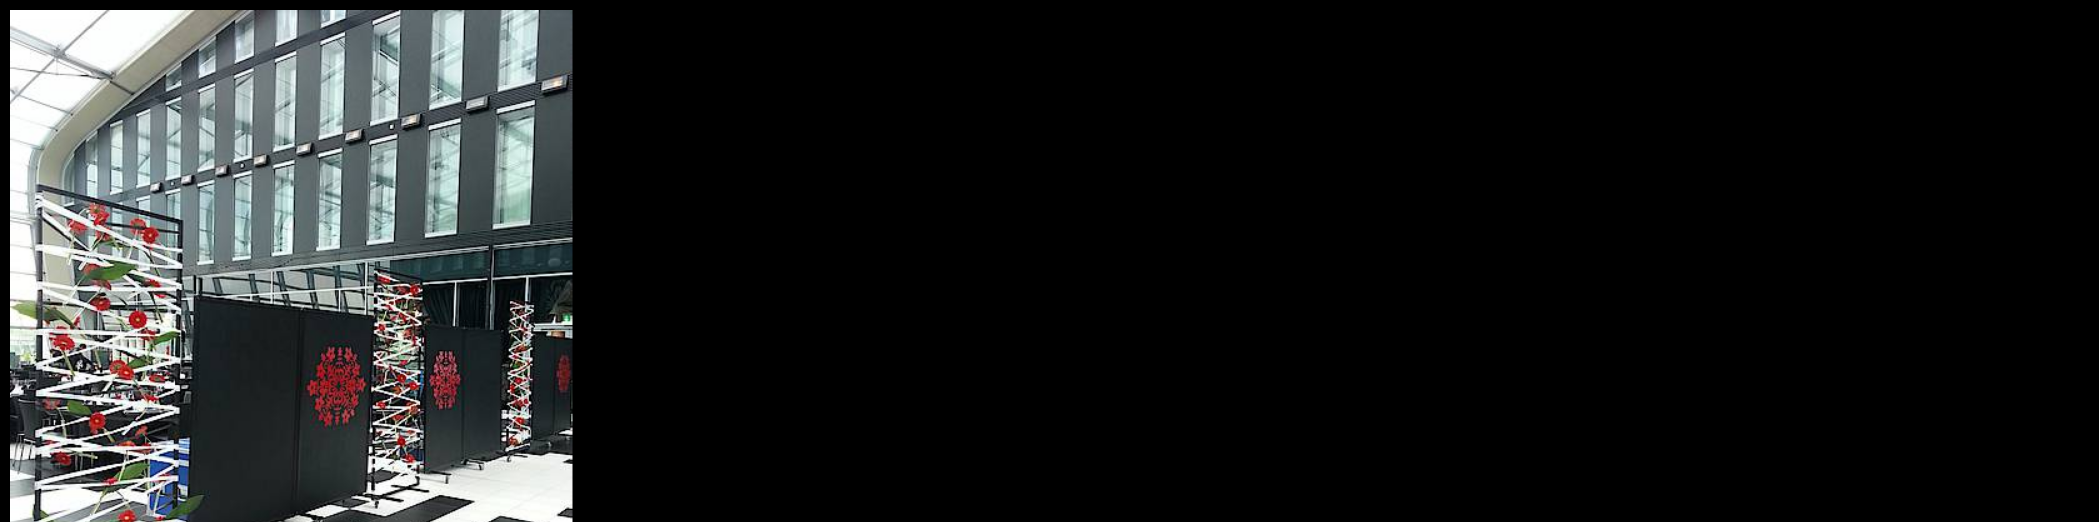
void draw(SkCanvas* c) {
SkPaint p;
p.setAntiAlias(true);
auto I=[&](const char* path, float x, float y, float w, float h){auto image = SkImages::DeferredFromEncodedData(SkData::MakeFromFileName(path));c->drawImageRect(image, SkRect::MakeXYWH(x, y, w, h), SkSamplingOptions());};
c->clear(0xff000000);
I("1.png",10,10,563,512);
}
